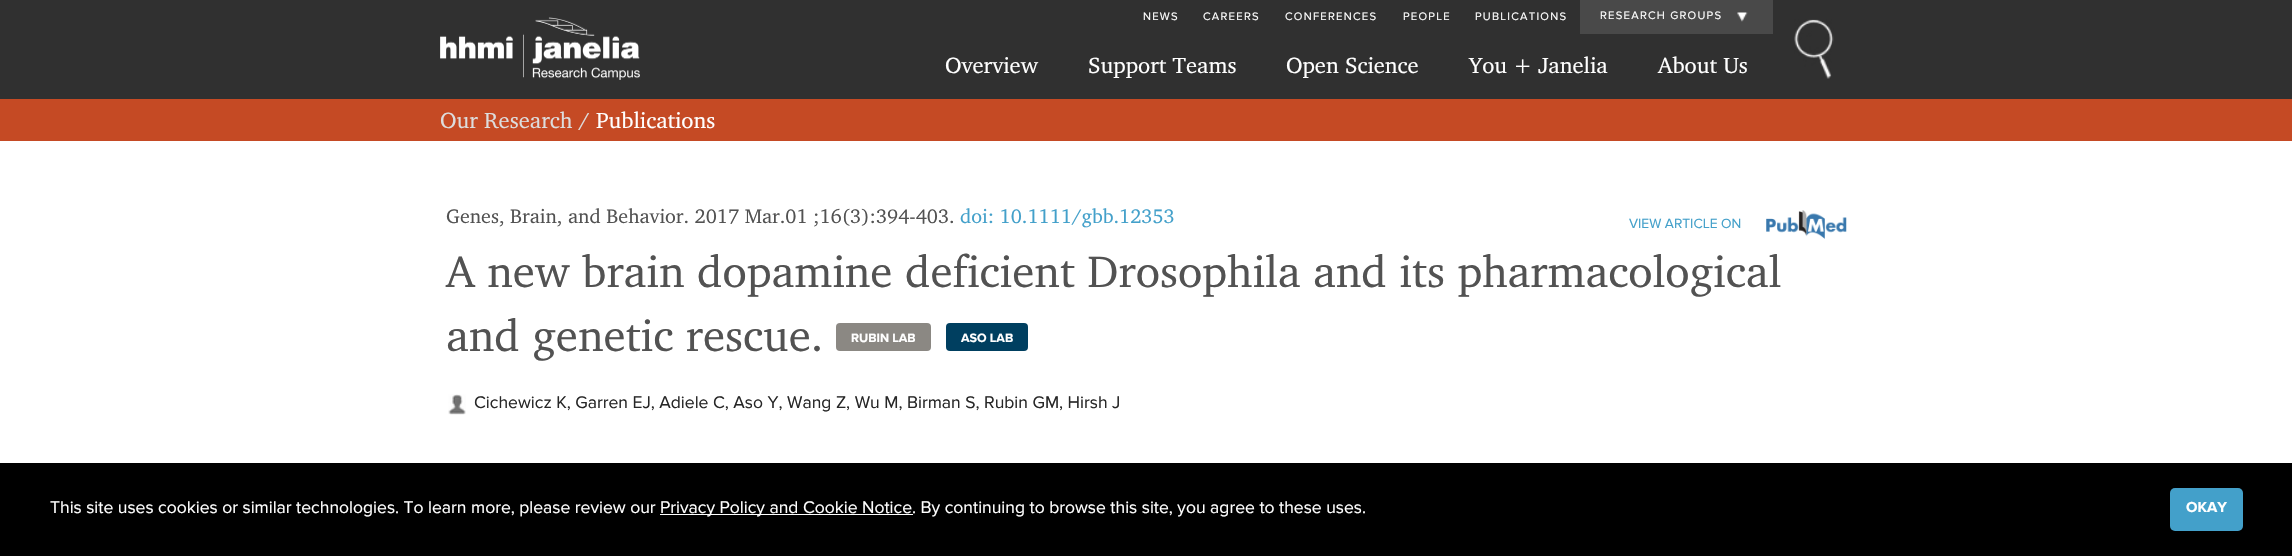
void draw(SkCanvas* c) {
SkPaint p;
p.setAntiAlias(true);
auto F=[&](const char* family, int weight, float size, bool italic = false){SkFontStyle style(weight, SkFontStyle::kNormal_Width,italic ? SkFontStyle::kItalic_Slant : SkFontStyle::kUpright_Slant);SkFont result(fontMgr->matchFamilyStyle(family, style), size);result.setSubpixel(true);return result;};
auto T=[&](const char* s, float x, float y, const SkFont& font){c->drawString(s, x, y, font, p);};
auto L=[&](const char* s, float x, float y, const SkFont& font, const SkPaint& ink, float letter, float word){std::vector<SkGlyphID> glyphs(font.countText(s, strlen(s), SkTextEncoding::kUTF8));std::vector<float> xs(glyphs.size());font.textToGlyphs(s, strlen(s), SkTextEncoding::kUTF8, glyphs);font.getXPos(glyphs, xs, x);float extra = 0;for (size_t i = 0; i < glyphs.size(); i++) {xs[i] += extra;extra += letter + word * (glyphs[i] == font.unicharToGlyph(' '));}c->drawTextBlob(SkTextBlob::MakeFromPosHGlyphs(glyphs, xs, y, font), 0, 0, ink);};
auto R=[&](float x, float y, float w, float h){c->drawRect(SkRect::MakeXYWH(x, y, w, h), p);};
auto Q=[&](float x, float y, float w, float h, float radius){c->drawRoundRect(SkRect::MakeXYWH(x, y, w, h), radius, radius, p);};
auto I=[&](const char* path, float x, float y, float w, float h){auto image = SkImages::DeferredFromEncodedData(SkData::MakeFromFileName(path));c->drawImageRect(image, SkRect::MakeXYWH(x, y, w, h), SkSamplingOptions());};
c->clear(0xffffffff);
p.setColor(0xff303030);
R(0,0,2292,99);
I("1.png",440,17,200,63);
auto f1 = F("Proxima Nova",400,11.25);
p.setColor(0xffffffff);
L("NEWS",1143,20,f1,p,1.25,0);
L("CAREERS",1203,20,f1,p,1.25,0);
L("CONFERENCES",1285,20,f1,p,1.25,0);
L("PEOPLE",1403,20,f1,p,1.25,0);
L("PUBLICATIONS",1475,20,f1,p,1.25,0);
p.setColor(0xff494949);
R(1580,0,193,34);
I("2.png",1737,12,11,10);
p.setColor(0xffffffff);
L("RESEARCH GROUPS",1600,19,f1,p,1.25,0);
auto f2 = F("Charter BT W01",400,22.5);
T("Overview",945,73,f2);
T("Support Teams",1088,73,f2);
T("Open Science",1286,73,f2);
T("You + Janelia",1469,73,f2);
T("About Us",1658,73,f2);
I("3.png",1794,19,40,60);
p.setColor(0xffc54a24);
R(0,99,2292,42);
p.setColor(0xffdddddd);
T("Our Research /",440,128,f2);
p.setColor(0xffffffff);
T("Publications",596,128,f2);
auto f3 = F("Charter BT W01",400,20);
p.setColor(0xff525252);
T("Genes, Brain, and Behavior. 2017 Mar.01 ;16(3):394-403.",446,223,f3);
p.setColor(0xff43a0ca);
T("doi: 10.1111/gbb.12353",960,223,f3);
auto f4 = F("Proxima Nova",400,13.75);
T("VIEW ARTICLE ON",1629,228,f4);
I("4.png",1766,210,81,29);
auto f5 = F("Charter BT W01",400,45);
p.setColor(0xff525252);
T("A new brain dopamine deficient Drosophila and its pharmacological",446,287,f5);
T("and genetic rescue.",446,351,f5);
p.setColor(0xff8b8883);
Q(836,323,95,28,4);
auto f6 = F("Proxima Nova",700,12.5);
p.setColor(0xffffffff);
T("RUBIN LAB",851,342,f6);
p.setColor(0xff003f60);
Q(946,323,82,28,4);
p.setColor(0xffffffff);
T("ASO LAB",961,342,f6);
I("5.png",448,394,18,21);
auto f7 = F("Proxima Nova",400,17.5);
p.setColor(0xff272727);
T("Cichewicz K, Garren EJ, Adiele C, Aso Y, Wang Z, Wu M, Birman S, Rubin GM, Hirsh J",474,408,f7);
p.setColor(0xff000000);
R(0,463,2292,93);
p.setColor(0xffffffff);
T("This site uses cookies or similar technologies. To learn more, please review our",50,513,f7);
R(660,514,253,1);
T("Privacy Policy and Cookie Notice. By continuing to browse this site, you agree to these uses.",660,513,f7);
p.setColor(0xff43a0ca);
Q(2170,488,73,43,5);
auto f8 = F("Proxima Nova",700,15);
p.setColor(0xffffffff);
T("OKAY",2186,512,f8);
}
